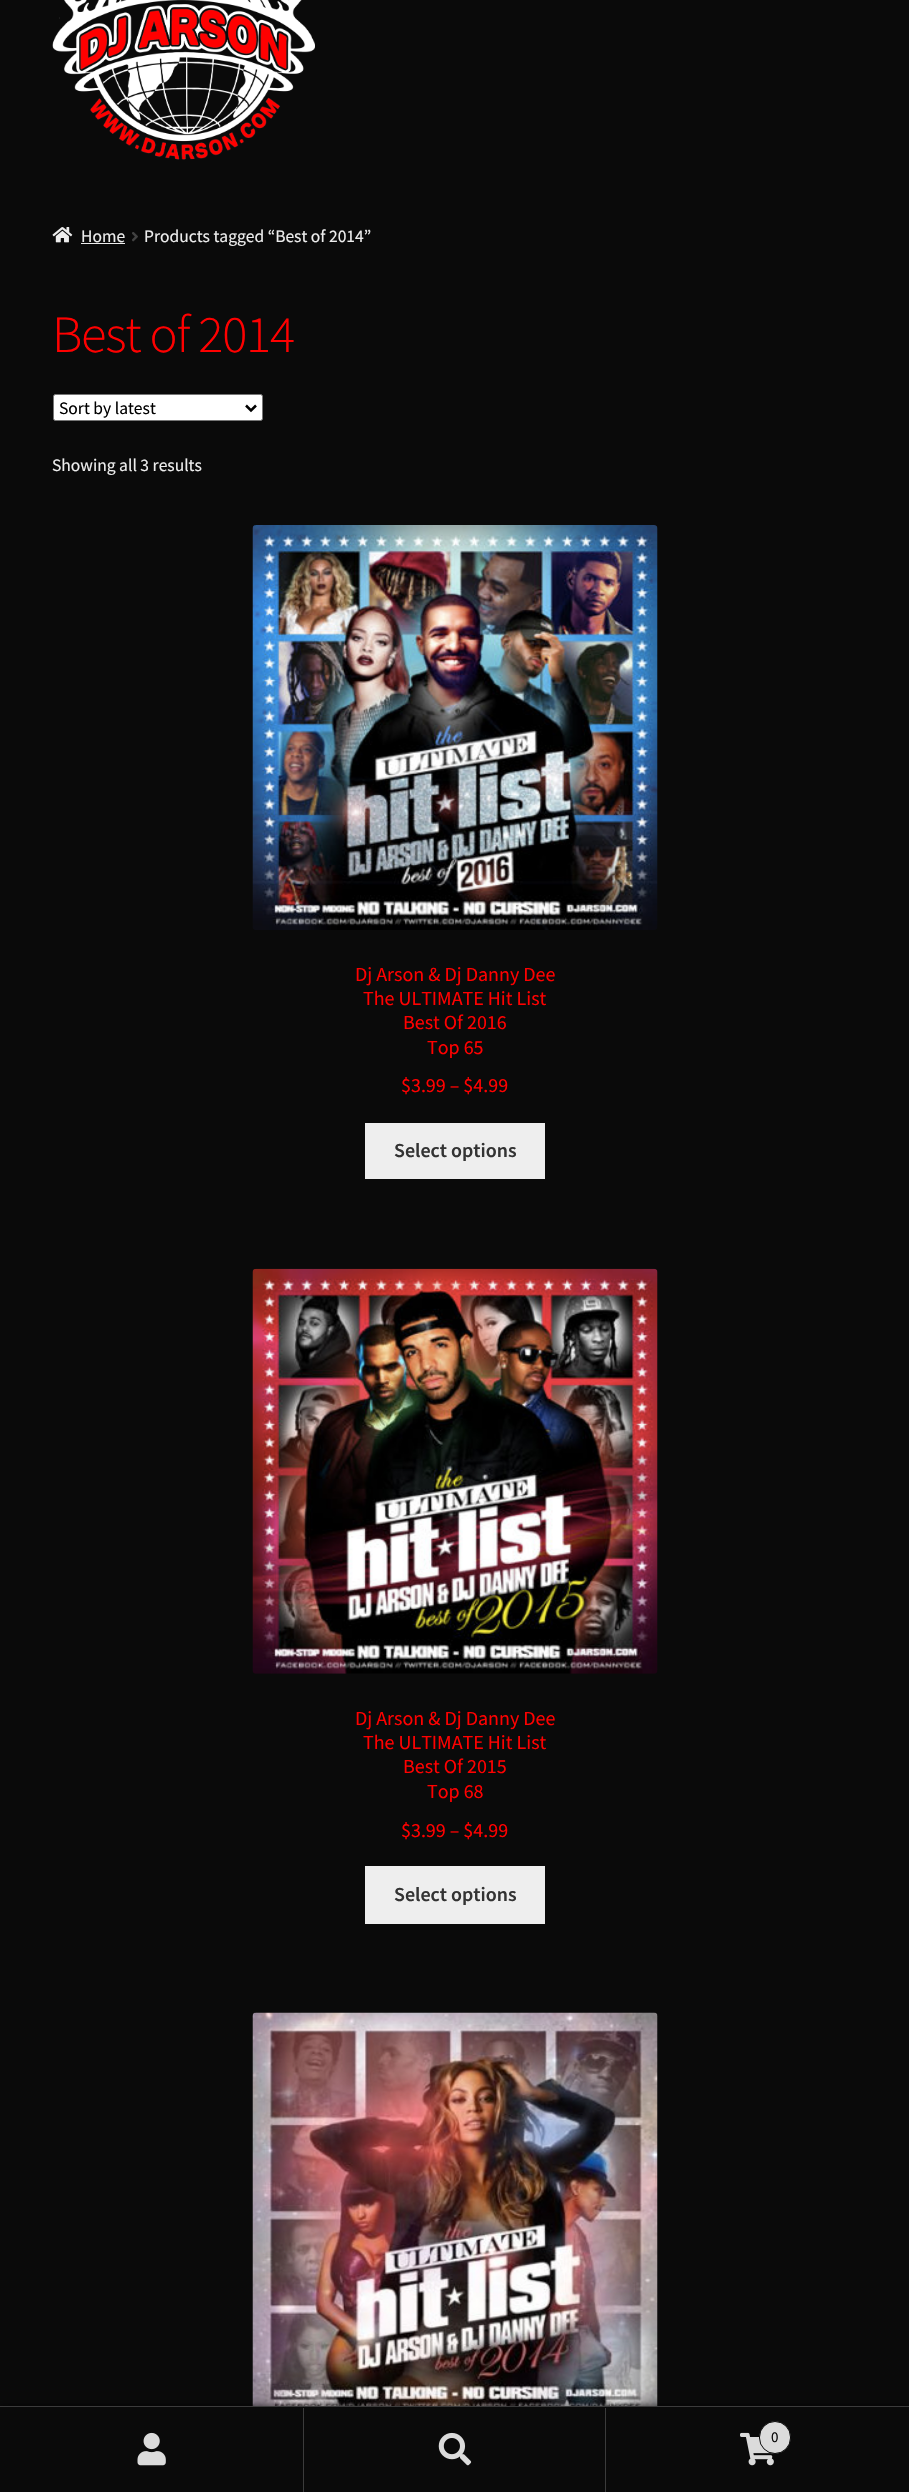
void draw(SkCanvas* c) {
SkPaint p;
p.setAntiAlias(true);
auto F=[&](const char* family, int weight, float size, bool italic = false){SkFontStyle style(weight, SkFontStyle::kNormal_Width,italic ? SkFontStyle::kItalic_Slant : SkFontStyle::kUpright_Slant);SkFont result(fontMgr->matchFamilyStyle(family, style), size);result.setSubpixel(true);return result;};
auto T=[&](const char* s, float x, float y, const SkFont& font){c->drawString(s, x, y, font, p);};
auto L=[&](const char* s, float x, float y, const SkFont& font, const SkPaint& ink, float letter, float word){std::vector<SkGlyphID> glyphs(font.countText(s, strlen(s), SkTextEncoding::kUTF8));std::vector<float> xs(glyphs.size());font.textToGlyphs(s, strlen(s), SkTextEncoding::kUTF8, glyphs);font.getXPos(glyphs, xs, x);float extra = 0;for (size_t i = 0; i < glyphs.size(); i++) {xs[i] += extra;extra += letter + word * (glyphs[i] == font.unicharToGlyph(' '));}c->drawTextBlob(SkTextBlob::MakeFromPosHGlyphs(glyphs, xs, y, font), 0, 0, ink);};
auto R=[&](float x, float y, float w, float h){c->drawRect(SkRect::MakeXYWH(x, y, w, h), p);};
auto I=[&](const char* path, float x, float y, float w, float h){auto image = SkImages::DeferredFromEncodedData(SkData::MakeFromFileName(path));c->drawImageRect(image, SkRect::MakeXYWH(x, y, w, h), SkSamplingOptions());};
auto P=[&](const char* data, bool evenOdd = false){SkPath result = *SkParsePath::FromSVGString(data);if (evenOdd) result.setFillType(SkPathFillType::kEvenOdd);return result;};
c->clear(0xff0a0a0a);
I("1.png",52,0,263,160);
I("2.png",52,227,21,16);
auto f1 = F("Source Sans Pro",400,17.5);
p.setColor(0xffededed);
T("Home",81,242,f1);
R(81,243,44,1);
I("3.png",132,232,6,10);
T("Products tagged “Best of 2014”",144,242,f1);
auto f2 = F("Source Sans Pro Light",300,52.5);
p.setColor(0xffff0000);
L("Best of 2014",52,352,f2,p,-1.25,0);
p.setColor(0xffffffff);
c->drawRoundRect(SkRect::MakeXYWH(53.5,394.5,209,26),2,2,p);
p.setStroke(true);
p.setStrokeWidth(1);
p.setColor(0xff767676);
c->drawRoundRect(SkRect::MakeXYWH(53.5,394.5,209,26),2,2,p);
p.setStrokeWidth(2.5);
p.setColor(0xff000000);
c->drawPath(P("M246 405.5l5 5l5-5"),p);
p.setStroke(false);
T("Sort by latest",59,414,f1);
p.setColor(0xffededed);
T("Showing all 3 results",52,471,f1);
I("4.png",252,525,406,405);
auto f3 = F("Source Sans Pro",400,20);
p.setColor(0xffff0000);
T("Dj Arson & Dj Danny Dee",355,981,f3);
T("The ULTIMATE Hit List",363,1005,f3);
T("Best Of 2016",403,1029,f3);
T("Top 65",427,1054,f3);
T("$3.99 – $4.99",401,1092,f3);
p.setColor(0xffeeeeee);
R(365,1123,180,56);
auto f4 = F("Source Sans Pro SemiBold",600,20);
p.setColor(0xff333333);
T("Select options",394,1157,f4);
I("5.png",252,1268,406,406);
p.setColor(0xffff0000);
T("Dj Arson & Dj Danny Dee",355,1725,f3);
T("The ULTIMATE Hit List",363,1749,f3);
T("Best Of 2015",403,1773,f3);
T("Top 68",427,1798,f3);
T("$3.99 – $4.99",401,1837,f3);
p.setColor(0xffeeeeee);
R(365,1866,180,58);
p.setColor(0xff333333);
T("Select options",394,1901,f4);
I("6.png",252,2012,406,394);
p.setColor(0xb3000000);
p.setMaskFilter(SkMaskFilter::MakeBlur(kNormal_SkBlurStyle, 4));
c->drawRect(SkRect::MakeXYWH(0,2406,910,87),p);
p.setMaskFilter(nullptr);
p.setColor(0xff0a0a0a);
R(0,2407,909,1);
p.setColor(0xff3b3b3b);
R(0,2406,909,1);
p.setColor(0xff0a0a0a);
R(0,2408,303,84);
p.setColor(0xff3b3b3b);
R(303,2408,1,84);
I("7.png",137,2432,29,34);
p.setColor(0xff0a0a0a);
R(304,2408,301,84);
p.setColor(0xff3b3b3b);
R(605,2408,1,84);
I("8.png",438,2432,34,34);
p.setColor(0xff0a0a0a);
R(606,2408,303,84);
I("9.png",740,2432,34,34);
p.setColor(0xffdbdbdb);
c->drawRoundRect(SkRect::MakeXYWH(759.5,2421.5,31,32),15.5,15.5,p);
p.setStroke(true);
p.setStrokeWidth(1);
p.setColor(0xff0a0a0a);
c->drawRoundRect(SkRect::MakeXYWH(759.5,2421.5,31,32),15.5,15.5,p);
auto f5 = F("Source Sans Pro",400,15);
p.setStroke(false);
T("0",771,2442,f5);
}
